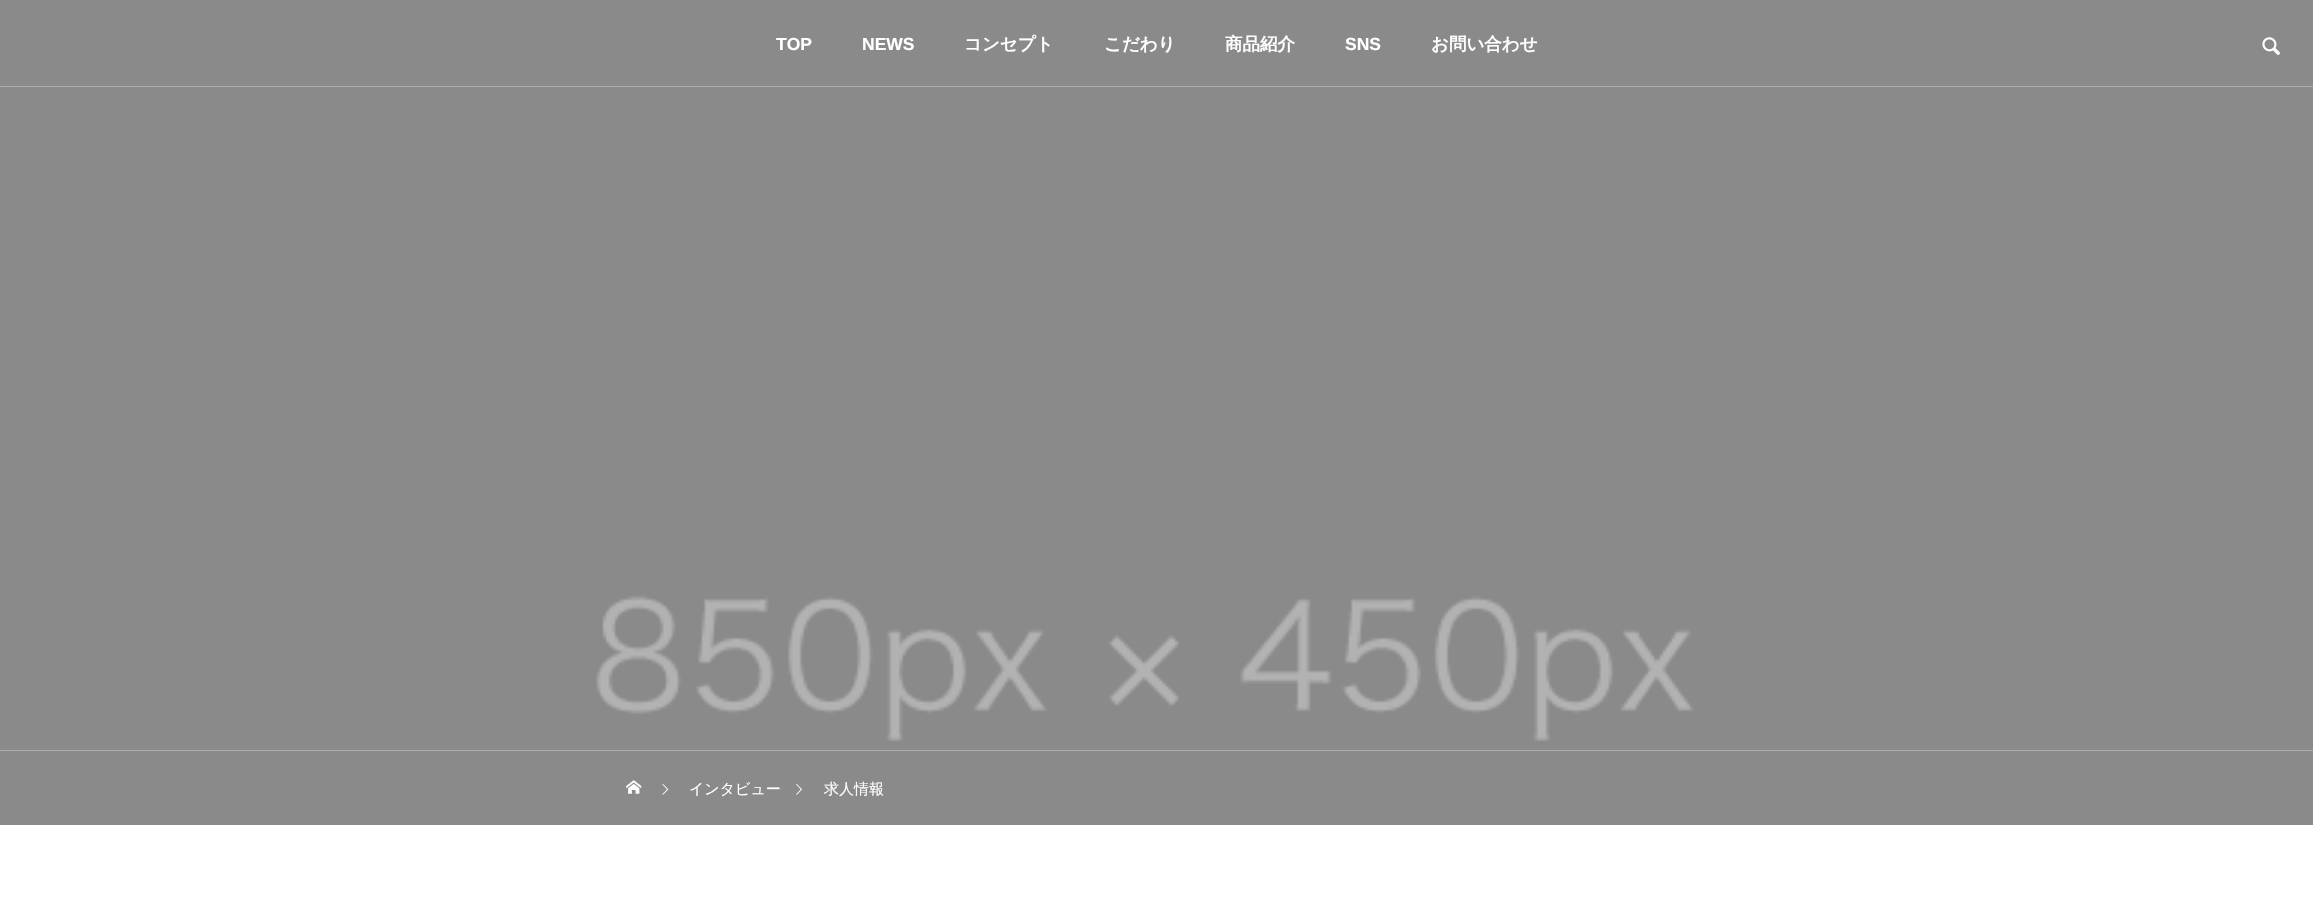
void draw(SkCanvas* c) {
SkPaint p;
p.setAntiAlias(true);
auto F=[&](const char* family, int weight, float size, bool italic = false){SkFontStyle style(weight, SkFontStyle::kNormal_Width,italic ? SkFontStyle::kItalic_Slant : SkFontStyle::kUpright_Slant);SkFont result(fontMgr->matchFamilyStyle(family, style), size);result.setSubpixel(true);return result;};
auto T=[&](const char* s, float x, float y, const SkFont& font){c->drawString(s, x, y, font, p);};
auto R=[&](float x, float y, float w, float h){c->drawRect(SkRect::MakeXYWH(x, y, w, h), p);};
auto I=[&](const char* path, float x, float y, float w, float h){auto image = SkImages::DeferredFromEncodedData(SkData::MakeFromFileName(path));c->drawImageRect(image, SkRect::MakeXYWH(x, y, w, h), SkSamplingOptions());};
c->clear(0xffffffff);
I("2.png",0,0,2313,825);
p.setColor(0xffadadad);
R(0,86,2313,1);
auto f1 = F("Liberation Sans",700,17.5);
p.setColor(0xffffffff);
T("TOP",776,50,f1);
T("NEWS",862,50,f1);
auto f2 = F("WenQuanYi Zen Hei",700,17.5);
T("コンセプト",964,50,f2);
T("こだわり",1104,50,f2);
T("商品紹介",1225,50,f2);
T("SNS",1345,50,f1);
T("お問い合わせ",1431,50,f2);
I("1.png",2262,37,19,18);
p.setColor(0xffadadad);
R(0,750,2313,1);
I("3.png",626,780,16,14);
I("4.png",662,784,7,11);
auto f3 = F("WenQuanYi Zen Hei",500,15);
p.setColor(0xffffffff);
T("インタビュー",689,794,f3);
I("5.png",796,784,6,11);
T("求人情報",824,794,f3);
}
